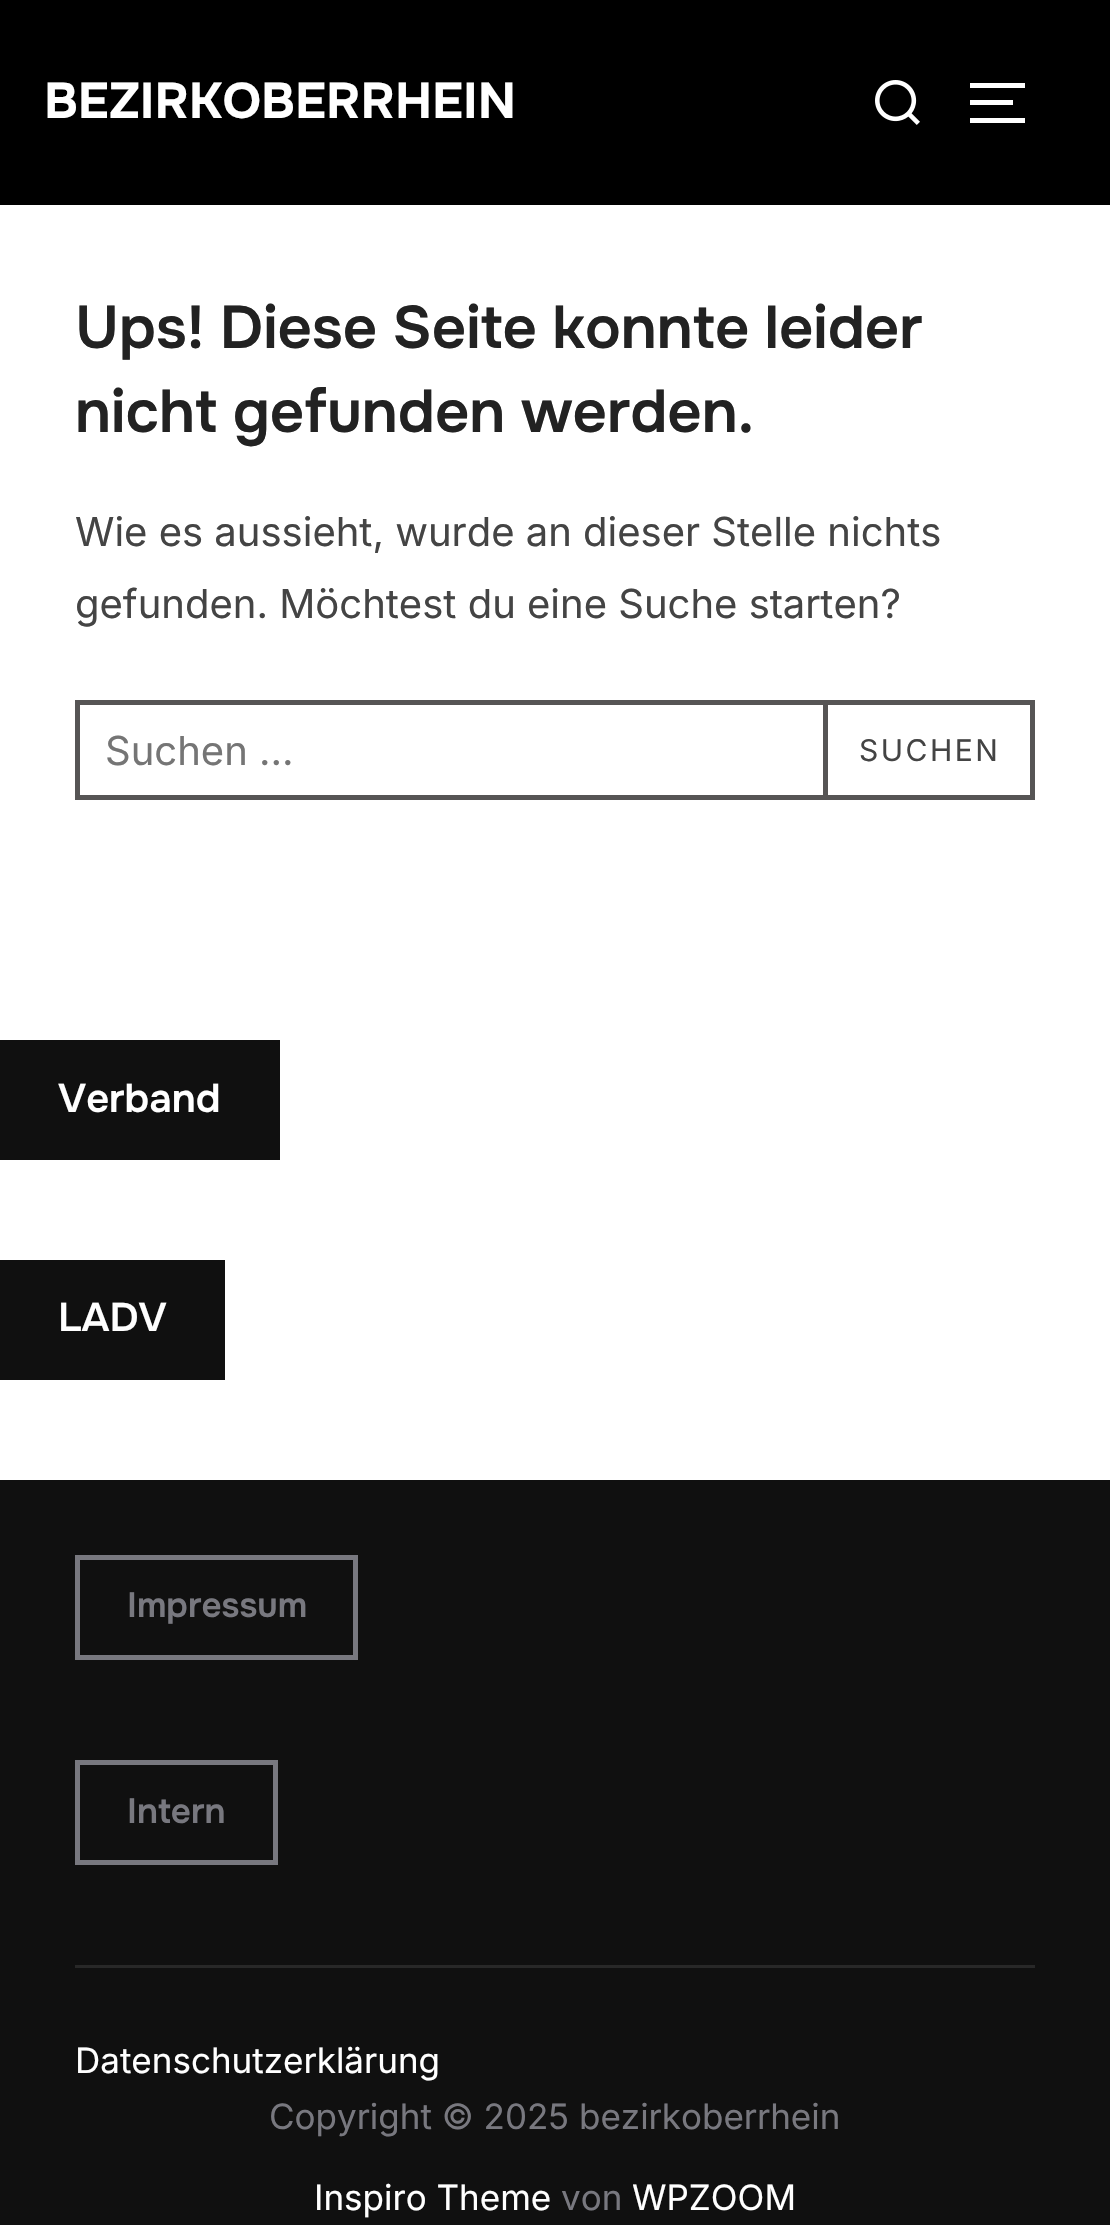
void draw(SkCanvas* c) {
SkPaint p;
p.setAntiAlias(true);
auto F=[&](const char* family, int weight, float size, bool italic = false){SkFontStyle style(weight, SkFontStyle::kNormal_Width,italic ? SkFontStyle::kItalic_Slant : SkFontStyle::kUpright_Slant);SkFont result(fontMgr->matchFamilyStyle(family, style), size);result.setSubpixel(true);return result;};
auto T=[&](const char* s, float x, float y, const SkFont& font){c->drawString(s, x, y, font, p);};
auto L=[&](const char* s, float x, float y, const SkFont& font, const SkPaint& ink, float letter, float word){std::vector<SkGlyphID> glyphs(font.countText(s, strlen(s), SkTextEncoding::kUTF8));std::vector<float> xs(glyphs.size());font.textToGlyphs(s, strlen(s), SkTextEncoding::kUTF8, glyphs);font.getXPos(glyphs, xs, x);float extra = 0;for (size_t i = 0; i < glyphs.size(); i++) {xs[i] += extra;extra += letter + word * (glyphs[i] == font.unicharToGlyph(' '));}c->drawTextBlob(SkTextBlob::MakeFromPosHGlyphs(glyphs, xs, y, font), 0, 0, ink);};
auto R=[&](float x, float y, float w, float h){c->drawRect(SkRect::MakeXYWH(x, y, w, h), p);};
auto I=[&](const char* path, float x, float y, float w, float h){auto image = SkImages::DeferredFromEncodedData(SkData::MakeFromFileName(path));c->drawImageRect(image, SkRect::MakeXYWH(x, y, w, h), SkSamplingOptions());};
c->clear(0xffffffff);
p.setColor(0xff000000);
R(0,0,1110,205);
auto f1 = F("Onest",700,50);
p.setColor(0xffffffff);
T("BEZIRKOBERRHEIN",44,118,f1);
I("1.png",875,80,45,45);
R(970,83,55,5);
R(970,100,43,5);
R(970,118,55,5);
auto f2 = F("Onest",600,60);
p.setColor(0xff222222);
L("Ups! Diese Seite konnte leider",75,348,f2,p,0,-1.5);
L("nicht gefunden werden.",75,432,f2,p,0,-1);
auto f3 = F("Inter",400,40);
p.setColor(0xff444444);
T("Wie es aussieht, wurde an dieser Stelle nichts",75,546,f3);
T("gefunden. Möchtest du eine Suche starten?",75,618,f3);
p.setStroke(true);
p.setStrokeWidth(5);
p.setColor(0xff565555);
c->drawRect(SkRect::MakeXYWH(77.5,702.5,955,95),p);
p.setStroke(false);
p.setColor(0xff757575);
T("Suchen …",105,765,f3);
p.setStroke(true);
p.setColor(0xff565555);
c->drawRect(SkRect::MakeXYWH(825.5,702.5,207,95),p);
auto f4 = F("Inter",400,30);
p.setStroke(false);
p.setColor(0xff444444);
L("SUCHEN",859,761,f4,p,2.5,0);
p.setColor(0xff101010);
R(0,1040,280,120);
auto f5 = F("Onest",600,40);
p.setColor(0xffffffff);
T("Verband",58,1112,f5);
p.setColor(0xff101010);
R(0,1260,225,120);
p.setColor(0xffffffff);
T("LADV",58,1331,f5);
p.setColor(0xff101010);
R(0,1480,1110,745);
p.setStroke(true);
p.setColor(0xff78787f);
c->drawRect(SkRect::MakeXYWH(77.5,1557.5,278,100),p);
auto f6 = F("Onest",600,35);
p.setStroke(false);
T("Impressum",127,1617,f6);
p.setStroke(true);
c->drawRect(SkRect::MakeXYWH(77.5,1762.5,198,100),p);
p.setStroke(false);
T("Intern",127,1823,f6);
p.setColor(0xff282828);
R(75,1965,960,3);
auto f7 = F("Inter",400,35);
p.setColor(0xffffffff);
T("Datenschutzerklärung",75,2073,f7);
p.setColor(0xff78787f);
T("Copyright © 2025 bezirkoberrhein",269,2129,f7);
p.setColor(0xffffffff);
T("Inspiro Theme",314,2210,f7);
p.setColor(0xff78787f);
T("von",561,2210,f7);
p.setColor(0xffffffff);
T("WPZOOM",632,2210,f7);
}
